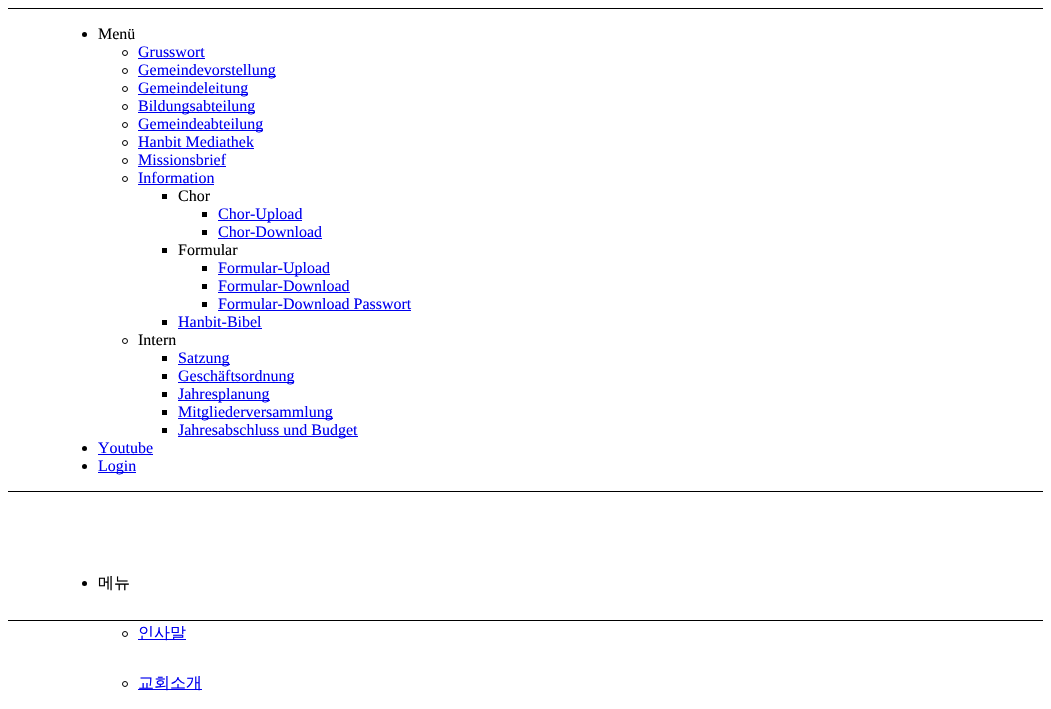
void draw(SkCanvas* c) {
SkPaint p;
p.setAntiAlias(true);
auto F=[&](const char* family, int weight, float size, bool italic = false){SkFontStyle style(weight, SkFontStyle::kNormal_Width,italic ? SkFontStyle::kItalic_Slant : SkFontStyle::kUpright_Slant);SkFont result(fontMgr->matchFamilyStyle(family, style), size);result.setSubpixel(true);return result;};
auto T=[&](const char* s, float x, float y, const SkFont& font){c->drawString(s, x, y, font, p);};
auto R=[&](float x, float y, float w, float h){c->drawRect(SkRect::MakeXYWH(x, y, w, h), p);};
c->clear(0xffffffff);
p.setColor(0xff000000);
R(8,8,1035,1);
c->drawCircle(84.5,34.5,2.5,p);
auto f1 = F("Liberation Serif",400,16);
T("Menü",98,39,f1);
p.setStroke(true);
p.setStrokeWidth(1);
c->drawCircle(125,53,2.5,p);
p.setStroke(false);
p.setColor(0xff0000ee);
T("Grusswort",138,57,f1);
R(138,58,67,1);
p.setStroke(true);
p.setColor(0xff000000);
c->drawCircle(125,71,2.5,p);
p.setStroke(false);
p.setColor(0xff0000ee);
R(138,76,138,1);
T("Gemeindevorstellung",138,75,f1);
p.setStroke(true);
p.setColor(0xff000000);
c->drawCircle(125,89,2.5,p);
p.setStroke(false);
p.setColor(0xff0000ee);
R(138,94,110,1);
T("Gemeindeleitung",138,93,f1);
p.setStroke(true);
p.setColor(0xff000000);
c->drawCircle(125,107,2.5,p);
p.setStroke(false);
p.setColor(0xff0000ee);
R(138,112,117,1);
T("Bildungsabteilung",138,111,f1);
p.setStroke(true);
p.setColor(0xff000000);
c->drawCircle(125,125,2.5,p);
p.setStroke(false);
p.setColor(0xff0000ee);
R(138,130,125,1);
T("Gemeindeabteilung",138,129,f1);
p.setStroke(true);
p.setColor(0xff000000);
c->drawCircle(125,143,2.5,p);
p.setStroke(false);
p.setColor(0xff0000ee);
T("Hanbit Mediathek",138,147,f1);
R(138,148,116,1);
p.setStroke(true);
p.setColor(0xff000000);
c->drawCircle(125,161,2.5,p);
p.setStroke(false);
p.setColor(0xff0000ee);
T("Missionsbrief",138,165,f1);
R(138,166,88,1);
p.setStroke(true);
p.setColor(0xff000000);
c->drawCircle(125,179,2.5,p);
p.setStroke(false);
p.setColor(0xff0000ee);
T("Information",138,183,f1);
R(138,184,76,1);
p.setColor(0xff000000);
R(162,194,5,5);
T("Chor",178,201,f1);
R(202,212,5,5);
p.setColor(0xff0000ee);
R(218,220,84,1);
T("Chor-Upload",218,219,f1);
p.setColor(0xff000000);
R(202,230,5,5);
p.setColor(0xff0000ee);
T("Chor-Download",218,237,f1);
R(218,238,104,1);
p.setColor(0xff000000);
R(162,248,5,5);
T("Formular",178,255,f1);
R(202,266,5,5);
p.setColor(0xff0000ee);
R(218,274,112,1);
T("Formular-Upload",218,273,f1);
p.setColor(0xff000000);
R(202,284,5,5);
p.setColor(0xff0000ee);
T("Formular-Download",218,291,f1);
R(218,292,132,1);
p.setColor(0xff000000);
R(202,302,5,5);
p.setColor(0xff0000ee);
T("Formular-Download Passwort",218,309,f1);
R(218,310,193,1);
p.setColor(0xff000000);
R(162,320,5,5);
p.setColor(0xff0000ee);
T("Hanbit-Bibel",178,327,f1);
R(178,328,84,1);
p.setStroke(true);
p.setColor(0xff000000);
c->drawCircle(125,341,2.5,p);
p.setStroke(false);
T("Intern",138,345,f1);
R(162,356,5,5);
p.setColor(0xff0000ee);
R(178,364,52,1);
T("Satzung",178,363,f1);
p.setColor(0xff000000);
R(162,374,5,5);
p.setColor(0xff0000ee);
R(178,382,116,1);
T("Geschäftsordnung",178,381,f1);
p.setColor(0xff000000);
R(162,392,5,5);
p.setColor(0xff0000ee);
R(178,400,92,1);
T("Jahresplanung",178,399,f1);
p.setColor(0xff000000);
R(162,410,5,5);
p.setColor(0xff0000ee);
R(178,418,155,1);
T("Mitgliederversammlung",178,417,f1);
p.setColor(0xff000000);
R(162,428,5,5);
p.setColor(0xff0000ee);
R(178,436,180,1);
T("Jahresabschluss und Budget",178,435,f1);
p.setColor(0xff000000);
c->drawCircle(84.5,448.5,2.5,p);
p.setColor(0xff0000ee);
T("Youtube",98,453,f1);
R(98,454,55,1);
p.setColor(0xff000000);
c->drawCircle(84.5,466.5,2.5,p);
p.setColor(0xff0000ee);
R(98,472,38,1);
T("Login",98,471,f1);
p.setColor(0xff000000);
R(8,491,1035,1);
c->drawCircle(84.5,583.5,2.5,p);
auto f2 = F("WenQuanYi Zen Hei",500,16);
T("메뉴",98,588,f2);
p.setStroke(true);
c->drawCircle(125,634,2.5,p);
p.setStroke(false);
p.setColor(0xff0000ee);
R(138,639,48,1);
T("인사말",138,638,f2);
p.setStroke(true);
p.setColor(0xff000000);
c->drawCircle(125,684,2.5,p);
p.setStroke(false);
p.setColor(0xff0000ee);
R(138,689,64,1);
T("교회소개",138,688,f2);
p.setColor(0xff000000);
R(8,620,1035,1);
}
